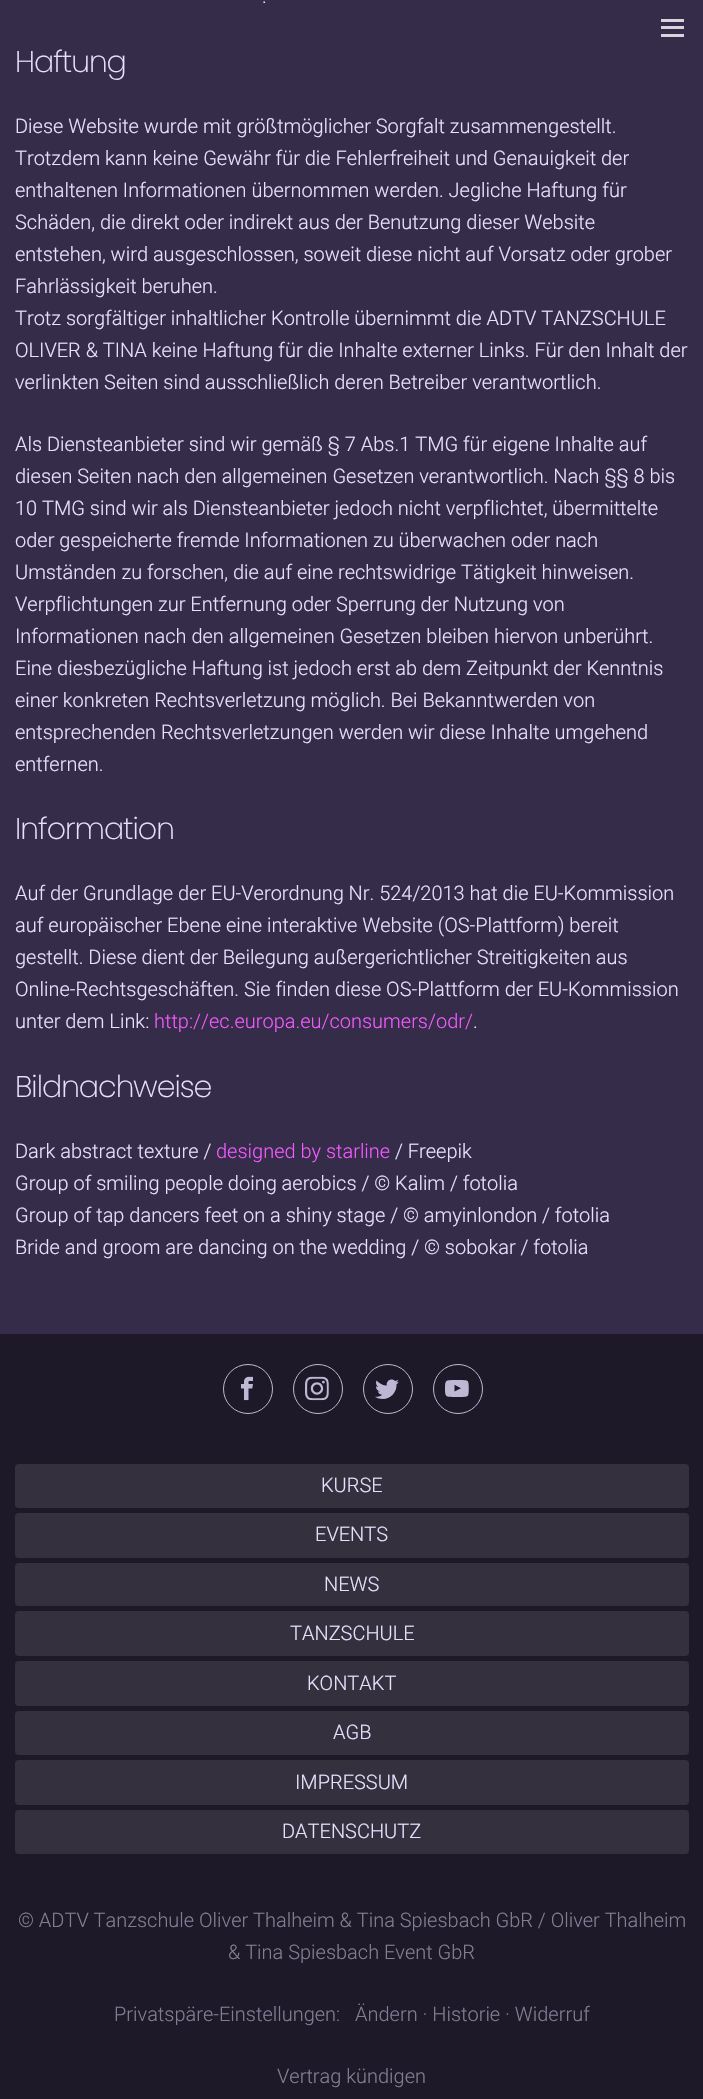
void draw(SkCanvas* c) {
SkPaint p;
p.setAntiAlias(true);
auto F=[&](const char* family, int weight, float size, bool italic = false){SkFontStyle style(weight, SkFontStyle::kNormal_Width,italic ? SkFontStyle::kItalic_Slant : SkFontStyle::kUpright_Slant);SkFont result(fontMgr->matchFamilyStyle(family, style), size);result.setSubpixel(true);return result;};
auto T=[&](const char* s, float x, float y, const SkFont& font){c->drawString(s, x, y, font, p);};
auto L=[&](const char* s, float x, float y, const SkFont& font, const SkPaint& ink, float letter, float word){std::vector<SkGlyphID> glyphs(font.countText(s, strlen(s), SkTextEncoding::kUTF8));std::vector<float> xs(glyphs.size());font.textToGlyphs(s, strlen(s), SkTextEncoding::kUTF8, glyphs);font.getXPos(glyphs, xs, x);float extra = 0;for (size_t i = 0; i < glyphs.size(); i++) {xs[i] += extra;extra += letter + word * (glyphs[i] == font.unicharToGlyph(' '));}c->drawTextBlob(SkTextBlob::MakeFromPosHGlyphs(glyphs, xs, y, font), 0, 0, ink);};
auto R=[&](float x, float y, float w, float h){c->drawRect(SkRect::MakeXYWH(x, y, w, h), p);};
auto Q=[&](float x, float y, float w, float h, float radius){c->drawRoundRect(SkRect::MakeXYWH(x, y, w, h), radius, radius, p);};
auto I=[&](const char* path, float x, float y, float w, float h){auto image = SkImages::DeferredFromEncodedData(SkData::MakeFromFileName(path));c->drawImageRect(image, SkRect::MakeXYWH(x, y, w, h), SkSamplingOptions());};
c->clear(0xff1e1929);
p.setColor(0xff352c49);
R(0,0,703,1334);
auto f1 = F("Roboto",300,20);
p.setColor(0xffe7e0ff);
T(".",262,3,f1);
auto f2 = F("Poppins",200,30);
L("Haftung",15,72,f2,p,-1,0);
T("Diese Website wurde mit größtmöglicher Sorgfalt zusammengestellt.",15,133,f1);
T("Trotzdem kann keine Gewähr für die Fehlerfreiheit und Genauigkeit der",15,165,f1);
T("enthaltenen Informationen übernommen werden. Jegliche Haftung für",15,197,f1);
T("Schäden, die direkt oder indirekt aus der Benutzung dieser Website",15,229,f1);
T("entstehen, wird ausgeschlossen, soweit diese nicht auf Vorsatz oder grober",15,261,f1);
T("Fahrlässigkeit beruhen.",15,293,f1);
T("Trotz sorgfältiger inhaltlicher Kontrolle übernimmt die ADTV TANZSCHULE",15,325,f1);
T("OLIVER & TINA keine Haftung für die Inhalte externer Links. Für den Inhalt der",15,357,f1);
T("verlinkten Seiten sind ausschließlich deren Betreiber verantwortlich.",15,389,f1);
T("Als Diensteanbieter sind wir gemäß § 7 Abs.1 TMG für eigene Inhalte auf",15,451,f1);
T("diesen Seiten nach den allgemeinen Gesetzen verantwortlich. Nach §§ 8 bis",15,483,f1);
T("10 TMG sind wir als Diensteanbieter jedoch nicht verpflichtet, übermittelte",15,515,f1);
T("oder gespeicherte fremde Informationen zu überwachen oder nach",15,547,f1);
T("Umständen zu forschen, die auf eine rechtswidrige Tätigkeit hinweisen.",15,579,f1);
T("Verpflichtungen zur Entfernung oder Sperrung der Nutzung von",15,611,f1);
T("Informationen nach den allgemeinen Gesetzen bleiben hiervon unberührt.",15,643,f1);
T("Eine diesbezügliche Haftung ist jedoch erst ab dem Zeitpunkt der Kenntnis",15,675,f1);
T("einer konkreten Rechtsverletzung möglich. Bei Bekanntwerden von",15,707,f1);
T("entsprechenden Rechtsverletzungen werden wir diese Inhalte umgehend",15,739,f1);
T("entfernen.",15,771,f1);
L("Information",15,839,f2,p,-1,0);
T("Auf der Grundlage der EU-Verordnung Nr. 524/2013 hat die EU-Kommission",15,900,f1);
T("auf europäischer Ebene eine interaktive Website (OS-Plattform) bereit",15,932,f1);
T("gestellt. Diese dient der Beilegung außergerichtlicher Streitigkeiten aus",15,964,f1);
T("Online-Rechtsgeschäften. Sie finden diese OS-Plattform der EU-Kommission",15,996,f1);
T("unter dem Link:",15,1028,f1);
p.setColor(0xfff55aff);
T("http://ec.europa.eu/consumers/odr/",154,1028,f1);
p.setColor(0xffe7e0ff);
T(".",473,1028,f1);
L("Bildnachweise",15,1097,f2,p,-1,0);
T("Dark abstract texture /",15,1158,f1);
p.setColor(0xfff55aff);
T("designed by starline",216,1158,f1);
p.setColor(0xffe7e0ff);
T("/ Freepik",395,1158,f1);
T("Group of smiling people doing aerobics / © Kalim / fotolia",15,1190,f1);
T("Group of tap dancers feet on a shiny stage / © amyinlondon / fotolia",15,1222,f1);
T("Bride and groom are dancing on the wedding / © sobokar / fotolia",15,1254,f1);
p.setColor(0xffd7d5db);
R(661,26,23,3);
R(661,19,23,3);
R(661,34,23,3);
p.setStroke(true);
p.setStrokeWidth(1);
p.setColor(0xffbfb8d4);
c->drawCircle(248,1389,24.5,p);
I("1.png",241,1376,12,25);
c->drawCircle(318,1389,24.5,p);
I("2.png",305,1376,24,25);
c->drawCircle(388,1389,24.5,p);
I("3.png",375,1379,24,20);
c->drawCircle(458,1389,24.5,p);
I("4.png",445,1380,24,17);
p.setStroke(false);
p.setColor(0xff35303e);
Q(15,1464,674,44,4);
p.setColor(0xffe7e0ff);
T("KURSE",321,1492,f1);
p.setColor(0xff35303e);
Q(15,1513,674,45,4);
p.setColor(0xffe7e0ff);
T("EVENTS",315,1541,f1);
p.setColor(0xff35303e);
Q(15,1563,674,43,4);
p.setColor(0xffe7e0ff);
T("NEWS",324,1591,f1);
p.setColor(0xff35303e);
Q(15,1611,674,45,4);
p.setColor(0xffe7e0ff);
T("TANZSCHULE",290,1640,f1);
p.setColor(0xff35303e);
Q(15,1661,674,45,4);
p.setColor(0xffe7e0ff);
T("KONTAKT",307,1690,f1);
p.setColor(0xff35303e);
Q(15,1711,674,44,4);
p.setColor(0xffe7e0ff);
T("AGB",333,1739,f1);
p.setColor(0xff35303e);
Q(15,1760,674,45,4);
p.setColor(0xffe7e0ff);
T("IMPRESSUM",295,1789,f1);
p.setColor(0xff35303e);
Q(15,1810,674,44,4);
p.setColor(0xffe7e0ff);
T("DATENSCHUTZ",282,1838,f1);
p.setColor(0xff837d94);
T("© ADTV Tanzschule Oliver Thalheim & Tina Spiesbach GbR / Oliver Thalheim",18,1927,f1);
T("& Tina Spiesbach Event GbR",228,1959,f1);
T("Privatspäre-Einstellungen:",114,2021,f1);
T("Ändern · Historie · Widerruf",355,2021,f1);
T("Vertrag kündigen",277,2083,f1);
}
